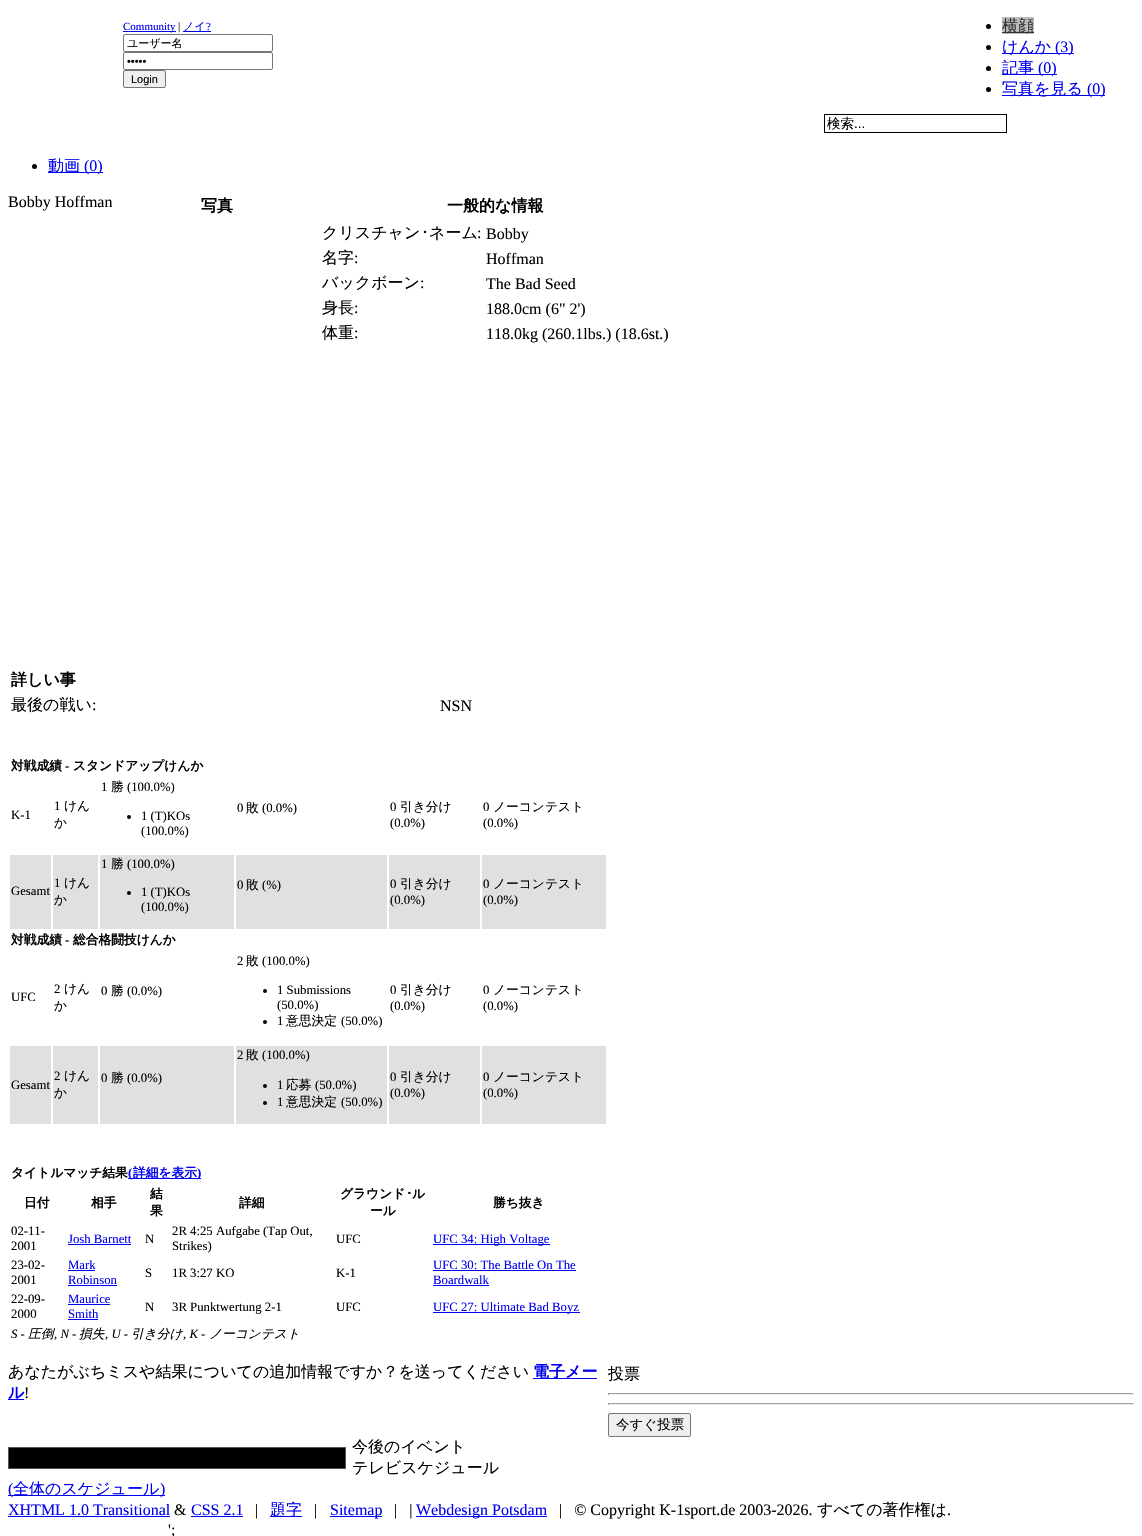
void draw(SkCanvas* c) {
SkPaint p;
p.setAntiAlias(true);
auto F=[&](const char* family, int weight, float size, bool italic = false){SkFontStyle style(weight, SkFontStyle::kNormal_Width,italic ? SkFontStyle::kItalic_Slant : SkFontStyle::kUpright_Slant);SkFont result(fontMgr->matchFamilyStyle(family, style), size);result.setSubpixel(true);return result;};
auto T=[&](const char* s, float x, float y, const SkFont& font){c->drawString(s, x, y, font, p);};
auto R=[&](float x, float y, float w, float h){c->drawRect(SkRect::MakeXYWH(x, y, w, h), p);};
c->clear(0xffffffff);
p.setColor(0xff000000);
c->drawCircle(988.5,26.5,2.5,p);
p.setColor(0xffbcbcbc);
R(1002,17,32,17);
p.setColor(0xff333333);
R(1002,32,32,1);
auto f1 = F("WenQuanYi Zen Hei",500,16);
T("横顔",1002,31,f1);
p.setColor(0xff000000);
c->drawCircle(988.5,47.5,2.5,p);
p.setColor(0xff0000ee);
R(1002,53,72,1);
T("けんか",1002,52,f1);
auto f2 = F("Liberation Serif",400,16);
T("(3)",1055,52,f2);
p.setColor(0xff000000);
c->drawCircle(988.5,68.5,2.5,p);
p.setColor(0xff0000ee);
R(1002,74,55,1);
T("記事",1002,73,f1);
T("(0)",1038,73,f2);
p.setColor(0xff000000);
c->drawCircle(988.5,89.5,2.5,p);
p.setColor(0xff0000ee);
R(1002,95,103,1);
T("写真を見る",1002,94,f1);
T("(0)",1087,94,f2);
p.setColor(0xff000000);
c->drawCircle(34.5,166.5,2.5,p);
p.setColor(0xff0000ee);
R(48,172,55,1);
T("動画",48,171,f1);
T("(0)",84,171,f2);
p.setColor(0xff000000);
T("Bobby Hoffman",8,207,f2);
auto f3 = F("WenQuanYi Zen Hei",700,16);
T("写真",201,211,f3);
T("一般的な情報",447,211,f3);
T("クリスチャン",322,238,f1);
auto f4 = F("IPAGothic",400,16);
T("･",421,238,f4);
T("ネーム",429,238,f1);
T(":",477,238,f2);
T("Bobby",486,239,f2);
T("名字",322,263,f1);
T(":",354,263,f2);
T("Hoffman",486,264,f2);
T("バックボーン",322,288,f1);
T(":",420,288,f2);
T("The Bad Seed",486,289,f2);
T("身長",322,313,f1);
T(":",354,313,f2);
T("188.0cm (6\" 2')",486,314,f2);
T("体重",322,338,f1);
T(":",354,338,f2);
T("118.0kg (260.1lbs.) (18.6st.)",486,339,f2);
T("詳しい事",11,685,f3);
T("最後の戦い",11,710,f1);
T(":",92,710,f2);
T("NSN",440,711,f2);
auto f5 = F("WenQuanYi Zen Hei",700,12.75);
T("対戦成績",11,770,f5);
auto f6 = F("Liberation Serif",700,12.75);
T("-",65,770,f6);
T("スタンドアップけんか",73,770,f5);
auto f7 = F("Liberation Serif",400,12.75);
T("K-1",11,819,f7);
T("1",54,810,f7);
auto f8 = F("WenQuanYi Zen Hei",500,12.75);
T("けん",64,810,f8);
T("か",54,827,f8);
T("1",101,791,f7);
T("勝",111,791,f8);
T("(100.0%)",127,791,f7);
c->drawCircle(129,817,2,p);
T("1 (T)KOs",141,820,f7);
T("(100.0%)",141,835,f7);
T("0",237,812,f7);
T("敗",246,812,f8);
T("(0.0%)",262,812,f7);
T("0",390,811,f7);
T("引き分け",400,811,f8);
T("(0.0%)",390,827,f7);
T("0",483,811,f7);
T("ノーコンテスト",493,811,f8);
T("(0.0%)",483,827,f7);
p.setColor(0xffe0e0e0);
R(10,855,41,74);
p.setColor(0xff000000);
T("Gesamt",11,895,f7);
p.setColor(0xffe0e0e0);
R(53,855,45,74);
p.setColor(0xff000000);
T("1",54,887,f7);
T("けん",64,887,f8);
T("か",54,904,f8);
p.setColor(0xffe0e0e0);
R(100,855,134,74);
p.setColor(0xff000000);
T("1",101,868,f7);
T("勝",111,868,f8);
T("(100.0%)",127,868,f7);
c->drawCircle(129,893,2,p);
T("1 (T)KOs",141,896,f7);
T("(100.0%)",141,911,f7);
p.setColor(0xffe0e0e0);
R(236,855,151,74);
p.setColor(0xff000000);
T("0",237,889,f7);
T("敗",246,889,f8);
T("(%)",262,889,f7);
p.setColor(0xffe0e0e0);
R(389,855,91,74);
p.setColor(0xff000000);
T("0",390,888,f7);
T("引き分け",400,888,f8);
T("(0.0%)",390,904,f7);
p.setColor(0xffe0e0e0);
R(482,855,124,74);
p.setColor(0xff000000);
T("0",483,888,f7);
T("ノーコンテスト",493,888,f8);
T("(0.0%)",483,904,f7);
T("対戦成績",11,944,f5);
T("-",65,944,f6);
T("総合格闘技けんか",73,944,f5);
T("UFC",11,1001,f7);
T("2",54,993,f7);
T("けん",64,993,f8);
T("か",54,1010,f8);
T("0",101,995,f7);
T("勝",111,995,f8);
T("(0.0%)",127,995,f7);
T("2",237,965,f7);
T("敗",246,965,f8);
T("(100.0%)",262,965,f7);
c->drawCircle(265,991,2,p);
T("1 Submissions",277,994,f7);
T("(50.0%)",277,1009,f7);
c->drawCircle(265,1022,2,p);
T("1",277,1025,f7);
T("意思決定",286,1025,f8);
T("(50.0%)",341,1025,f7);
T("0",390,994,f7);
T("引き分け",400,994,f8);
T("(0.0%)",390,1010,f7);
T("0",483,994,f7);
T("ノーコンテスト",493,994,f8);
T("(0.0%)",483,1010,f7);
p.setColor(0xffe0e0e0);
R(10,1046,41,78);
p.setColor(0xff000000);
T("Gesamt",11,1089,f7);
p.setColor(0xffe0e0e0);
R(53,1046,45,78);
p.setColor(0xff000000);
T("2",54,1080,f7);
T("けん",64,1080,f8);
T("か",54,1097,f8);
p.setColor(0xffe0e0e0);
R(100,1046,134,78);
p.setColor(0xff000000);
T("0",101,1082,f7);
T("勝",111,1082,f8);
T("(0.0%)",127,1082,f7);
p.setColor(0xffe0e0e0);
R(236,1046,151,78);
p.setColor(0xff000000);
T("2",237,1059,f7);
T("敗",246,1059,f8);
T("(100.0%)",262,1059,f7);
c->drawCircle(265,1086,2,p);
T("1",277,1089,f7);
T("応募",286,1089,f8);
T("(50.0%)",315,1089,f7);
c->drawCircle(265,1103,2,p);
T("1",277,1106,f7);
T("意思決定",286,1106,f8);
T("(50.0%)",341,1106,f7);
p.setColor(0xffe0e0e0);
R(389,1046,91,78);
p.setColor(0xff000000);
T("0",390,1081,f7);
T("引き分け",400,1081,f8);
T("(0.0%)",390,1097,f7);
p.setColor(0xffe0e0e0);
R(482,1046,124,78);
p.setColor(0xff000000);
T("0",483,1081,f7);
T("ノーコンテスト",493,1081,f8);
T("(0.0%)",483,1097,f7);
T("タイトルマッチ結果",11,1177,f5);
p.setColor(0xff0000ee);
R(128,1178,73,1);
T("(",128,1177,f6);
T("詳細を表示",133,1177,f5);
T(")",197,1177,f6);
p.setColor(0xff000000);
T("日付",24,1207,f5);
T("相手",91,1207,f5);
T("結",150,1198,f5);
T("果",150,1215,f5);
T("詳細",239,1207,f5);
T("グラウンド",340,1198,f5);
auto f9 = F("IPAGothic",700,12.75);
T("･",406,1198,f9);
T("ル",412,1198,f5);
T("ール",370,1215,f5);
T("勝ち抜き",493,1207,f5);
T("02-11-",11,1235,f7);
T("2001",11,1250,f7);
p.setColor(0xff0000ee);
T("Josh Barnett",68,1243,f7);
R(68,1244,63,1);
p.setColor(0xff000000);
T("N",145,1243,f7);
T("2R 4:25 Aufgabe (Tap Out,",172,1235,f7);
T("Strikes)",172,1250,f7);
T("UFC",336,1243,f7);
p.setColor(0xff0000ee);
R(433,1244,117,1);
T("UFC 34: High Voltage",433,1243,f7);
p.setColor(0xff000000);
T("23-02-",11,1269,f7);
T("2001",11,1284,f7);
p.setColor(0xff0000ee);
T("Mark",68,1269,f7);
R(68,1270,27,1);
T("Robinson",68,1284,f7);
R(68,1285,49,1);
p.setColor(0xff000000);
T("S",145,1277,f7);
T("1R 3:27 KO",172,1277,f7);
T("K-1",336,1277,f7);
p.setColor(0xff0000ee);
T("UFC 30: The Battle On The",433,1269,f7);
R(433,1270,143,1);
T("Boardwalk",433,1284,f7);
R(433,1285,56,1);
p.setColor(0xff000000);
T("22-09-",11,1303,f7);
T("2000",11,1318,f7);
p.setColor(0xff0000ee);
T("Maurice",68,1303,f7);
R(68,1304,42,1);
T("Smith",68,1318,f7);
R(68,1319,30,1);
p.setColor(0xff000000);
T("N",145,1311,f7);
T("3R Punktwertung 2-1",172,1311,f7);
T("UFC",336,1311,f7);
p.setColor(0xff0000ee);
R(433,1312,147,1);
T("UFC 27: Ultimate Bad Boyz",433,1311,f7);
auto f10 = F("Liberation Serif",400,12.75,true);
p.setColor(0xff000000);
T("S -",11,1338,f10);
auto f11 = F("WenQuanYi Zen Hei",500,12.75,true);
T("圧倒",28,1338,f11);
T(", N -",54,1338,f10);
T("損失",79,1338,f11);
T(", U -",105,1338,f10);
T("引き分け",131,1338,f11);
T(", K -",183,1338,f10);
T("ノーコンテスト",209,1338,f11);
T("あなたがぶちミスや結果についての追加情報ですか？を送ってください",8,1377,f1);
p.setColor(0xff0000ee);
R(533,1378,64,1);
T("電子メー",533,1377,f3);
T("ル",8,1398,f3);
R(8,1399,16,1);
p.setColor(0xff000000);
T("!",24,1398,f2);
p.setColor(0xff0000ee);
R(123,31,53,1);
auto f12 = F("Liberation Serif",400,11);
T("Community",123,30,f12);
p.setColor(0xff000000);
T("|",178,30,f12);
p.setColor(0xff0000ee);
R(183,31,28,1);
auto f13 = F("WenQuanYi Zen Hei",500,11);
T("ノイ",183,30,f13);
T("?",206,30,f12);
p.setStroke(true);
p.setStrokeWidth(1);
p.setColor(0xff767676);
c->drawRoundRect(SkRect::MakeXYWH(123.5,34.5,149,17),1.5,1.5,p);
p.setStroke(false);
p.setColor(0xff000000);
T("ユーザー名",127,47,f13);
p.setStroke(true);
p.setColor(0xff767676);
c->drawRoundRect(SkRect::MakeXYWH(123.5,52.5,149,17),1.5,1.5,p);
auto f14 = F("Liberation Sans",400,11);
p.setStroke(false);
p.setColor(0xff000000);
T("•••••",127,65,f14);
p.setColor(0xffefefef);
c->drawRoundRect(SkRect::MakeXYWH(123.5,70.5,42,17),1.5,1.5,p);
p.setStroke(true);
p.setColor(0xff767676);
c->drawRoundRect(SkRect::MakeXYWH(123.5,70.5,42,17),1.5,1.5,p);
p.setStroke(false);
p.setColor(0xff000000);
T("Login",131,83,f14);
p.setStroke(true);
c->drawRect(SkRect::MakeXYWH(824.5,114.5,182,18),p);
auto f15 = F("WenQuanYi Zen Hei",500,13.5);
p.setStroke(false);
T("検索",827,128,f15);
auto f16 = F("Liberation Sans",400,13.5);
T("...",854,128,f16);
T("投票",608,1379,f1);
p.setColor(0xff9f9f9f);
R(608,1393,526,1);
p.setColor(0xffeeeeee);
R(1133,1393,1,2);
R(608,1394,526,1);
p.setColor(0xff9f9f9f);
R(608,1393,1,2);
R(608,1403,526,1);
p.setColor(0xffeeeeee);
R(1133,1403,1,2);
R(608,1404,526,1);
p.setColor(0xff9f9f9f);
R(608,1403,1,2);
p.setColor(0xffefefef);
c->drawRoundRect(SkRect::MakeXYWH(608.5,1413.5,82,23),1.5,1.5,p);
p.setStroke(true);
p.setColor(0xff767676);
c->drawRoundRect(SkRect::MakeXYWH(608.5,1413.5,82,23),1.5,1.5,p);
p.setStroke(false);
p.setColor(0xff000000);
T("今すぐ投票",616,1429,f15);
p.setStroke(true);
p.setColor(0xff555555);
c->drawRect(SkRect::MakeXYWH(8.5,1447.5,337,21),p);
p.setStroke(false);
p.setColor(0xff000000);
R(9,1448,336,20);
T("今後のイベント",352,1452,f1);
T("テレビスケジュール",352,1473,f1);
p.setColor(0xff0000ee);
R(8,1495,157,1);
T("(",8,1494,f2);
T("全体のスケジュール",13,1494,f1);
T(")",160,1494,f2);
T("XHTML 1.0 Transitional",8,1515,f2);
R(8,1516,162,1);
p.setColor(0xff000000);
T("&",174,1515,f2);
p.setColor(0xff0000ee);
T("CSS 2.1",191,1515,f2);
R(191,1516,52,1);
p.setColor(0xff000000);
T("|",255,1515,f2);
p.setColor(0xff0000ee);
R(270,1516,32,1);
T("題字",270,1515,f1);
p.setColor(0xff000000);
T("|",314,1515,f2);
p.setColor(0xff0000ee);
R(330,1516,52,1);
T("Sitemap",330,1515,f2);
p.setColor(0xff000000);
T("|   |",394,1515,f2);
p.setColor(0xff0000ee);
R(416,1516,131,1);
T("Webdesign Potsdam",416,1515,f2);
p.setColor(0xff000000);
T("|   © Copyright K-1sport.de 2003-2026.",559,1515,f2);
T("すべての著作権は",817,1515,f1);
T(".",947,1515,f2);
T("';",168,1535,f2);
}
